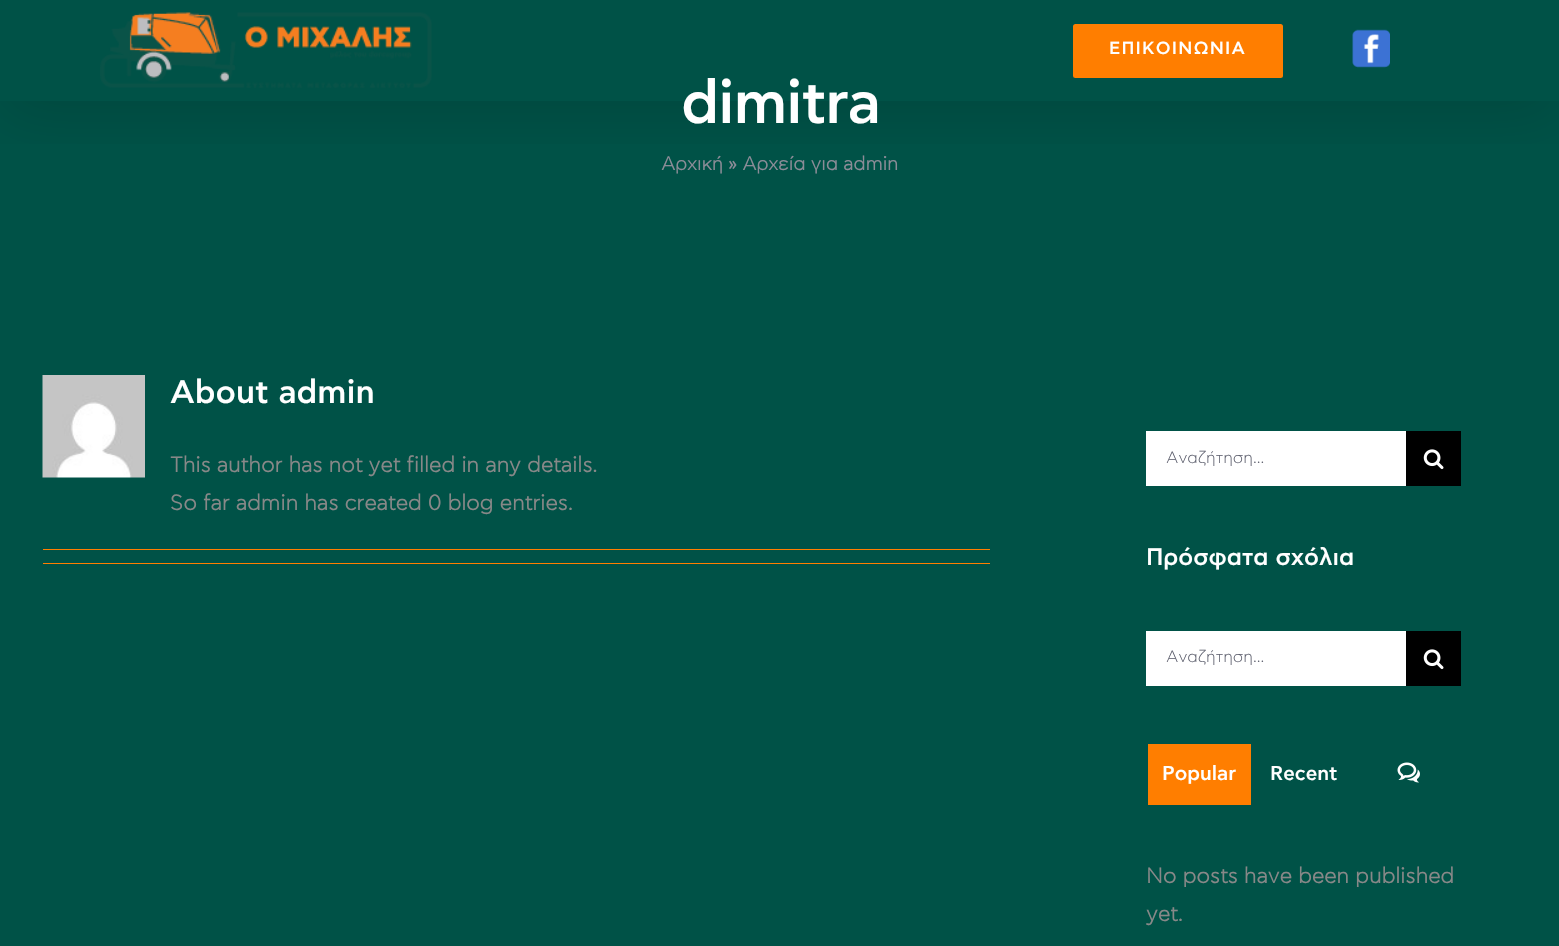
void draw(SkCanvas* c) {
SkPaint p;
p.setAntiAlias(true);
auto F=[&](const char* family, int weight, float size, bool italic = false){SkFontStyle style(weight, SkFontStyle::kNormal_Width,italic ? SkFontStyle::kItalic_Slant : SkFontStyle::kUpright_Slant);SkFont result(fontMgr->matchFamilyStyle(family, style), size);result.setSubpixel(true);return result;};
auto T=[&](const char* s, float x, float y, const SkFont& font){c->drawString(s, x, y, font, p);};
auto L=[&](const char* s, float x, float y, const SkFont& font, const SkPaint& ink, float letter, float word){std::vector<SkGlyphID> glyphs(font.countText(s, strlen(s), SkTextEncoding::kUTF8));std::vector<float> xs(glyphs.size());font.textToGlyphs(s, strlen(s), SkTextEncoding::kUTF8, glyphs);font.getXPos(glyphs, xs, x);float extra = 0;for (size_t i = 0; i < glyphs.size(); i++) {xs[i] += extra;extra += letter + word * (glyphs[i] == font.unicharToGlyph(' '));}c->drawTextBlob(SkTextBlob::MakeFromPosHGlyphs(glyphs, xs, y, font), 0, 0, ink);};
auto R=[&](float x, float y, float w, float h){c->drawRect(SkRect::MakeXYWH(x, y, w, h), p);};
auto Q=[&](float x, float y, float w, float h, float radius){c->drawRoundRect(SkRect::MakeXYWH(x, y, w, h), radius, radius, p);};
auto I=[&](const char* path, float x, float y, float w, float h){auto image = SkImages::DeferredFromEncodedData(SkData::MakeFromFileName(path));c->drawImageRect(image, SkRect::MakeXYWH(x, y, w, h), SkSamplingOptions());};
c->clear(0xff005247);
c->save();
c->clipRect(SkRect::MakeXYWH(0,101,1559,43));
p.setColor(0x24000000);
p.setMaskFilter(SkMaskFilter::MakeBlur(kNormal_SkBlurStyle, 31));
c->drawRect(SkRect::MakeXYWH(3,15,1555,96),p);
p.setMaskFilter(nullptr);
c->restore();
I("1.png",100,12,332,76);
p.setColor(0xffff7e00);
Q(1073,24,210,54,2.5);
auto f1 = F("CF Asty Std",500,17.5);
p.setColor(0xffffffff);
L("ΕΠΙΚΟΙΝΩΝΙΑ",1109,54,f1,p,1.25,0);
I("2.png",1352,29,38,39);
auto f2 = F("CF Asty Std",500,60);
L("dimitra",681,123,f2,p,-1.25,0);
auto f3 = F("CF Asty Std",700,18.75);
p.setColor(0xff8b8c97);
T("Αρχική » Αρχεία για admin",661,170,f3);
I("3.png",42,375,103,103);
auto f4 = F("CF Asty Std",500,32.5);
p.setColor(0xffffffff);
T("About admin",170,403,f4);
auto f5 = F("CF Asty Std",700,21.25);
p.setColor(0xff888888);
T("This author has not yet filled in any details.",170,472,f5);
T("So far admin has created 0 blog entries.",170,510,f5);
p.setColor(0xffff7e00);
R(43,549,947,1);
R(43,563,947,1);
p.setColor(0xffffffff);
R(1146,431,260,55);
auto f6 = F("CF Asty Std",300,16.25);
p.setColor(0xff5f616f);
T("Αναζήτηση...",1166,463,f6);
p.setColor(0xff000000);
R(1406,431,55,55);
I("4.png",1423,449,21,21);
auto f7 = F("CF Asty Std",500,23.75);
p.setColor(0xffffffff);
T("Πρόσφατα σχόλια",1146,565,f7);
R(1146,631,260,55);
p.setColor(0xff5f616f);
T("Αναζήτηση...",1166,662,f6);
p.setColor(0xff000000);
R(1406,631,55,55);
I("4.png",1423,649,21,21);
p.setColor(0xffff7e00);
R(1148,744,103,61);
auto f8 = F("CF Asty Std",500,20);
p.setColor(0xffffffff);
T("Popular",1162,780,f8);
T("Recent",1270,780,f8);
I("5.png",1397,762,23,21);
p.setColor(0xff888888);
T("No posts have been published",1146,883,f5);
T("yet.",1146,921,f5);
}
